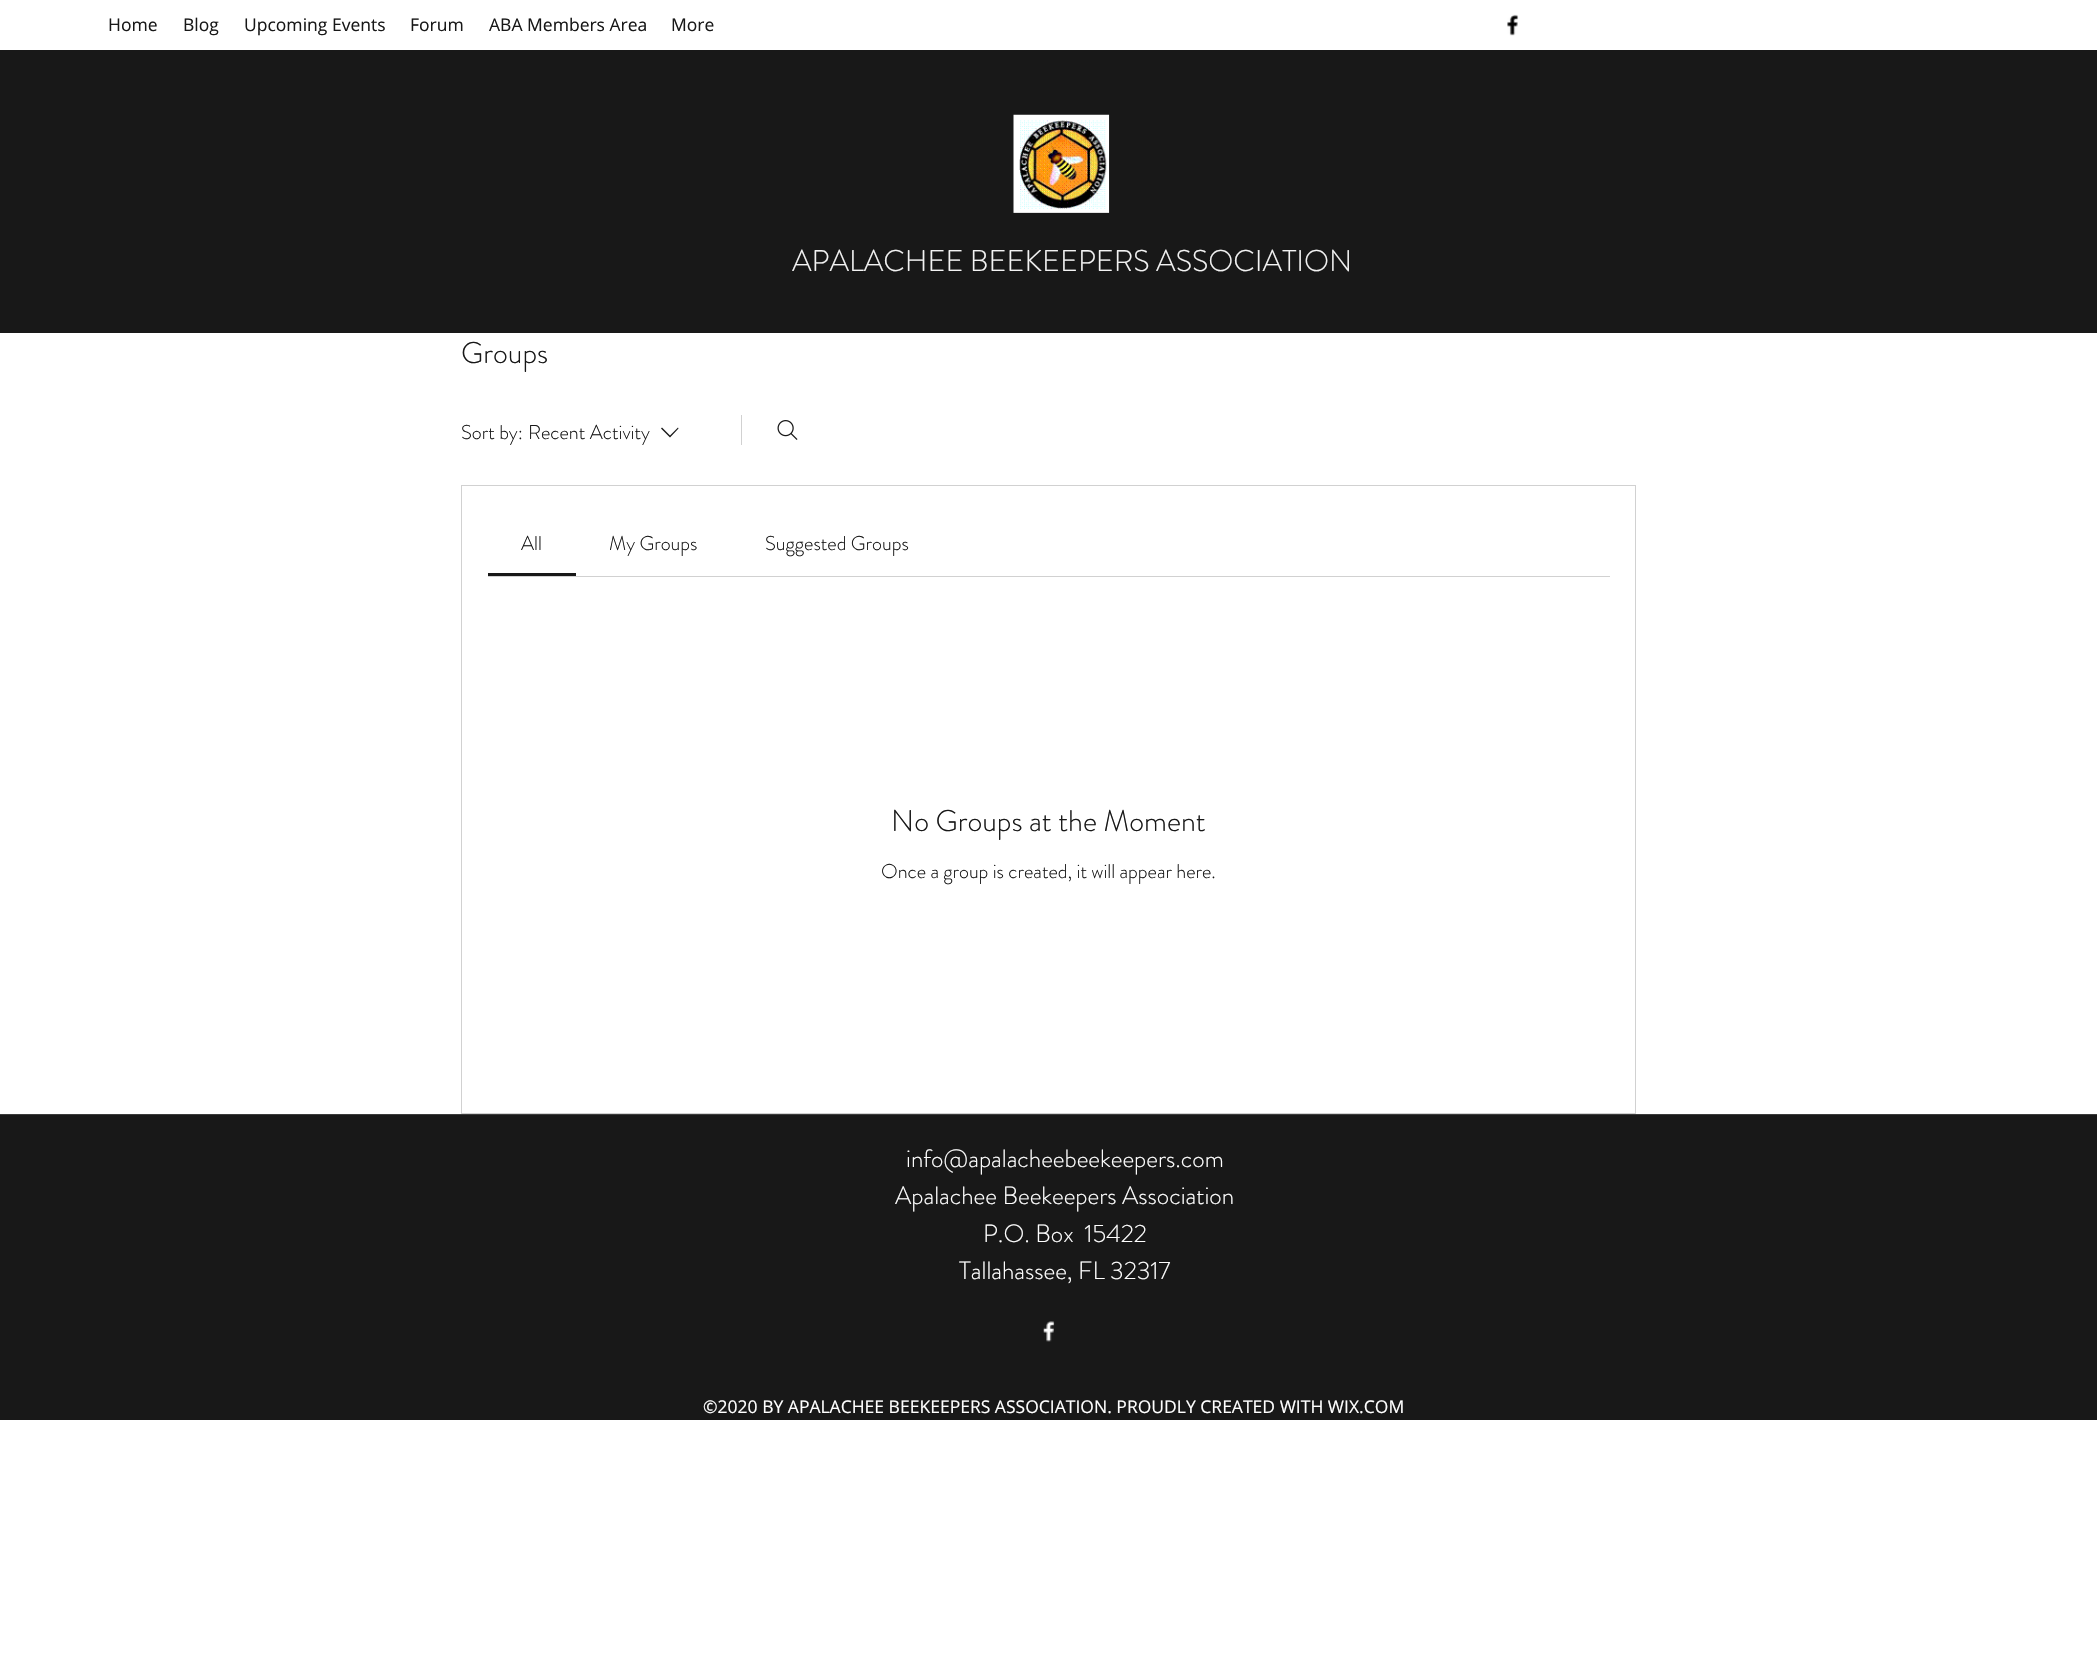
void draw(SkCanvas* c) {
SkPaint p;
p.setAntiAlias(true);
auto F=[&](const char* family, int weight, float size, bool italic = false){SkFontStyle style(weight, SkFontStyle::kNormal_Width,italic ? SkFontStyle::kItalic_Slant : SkFontStyle::kUpright_Slant);SkFont result(fontMgr->matchFamilyStyle(family, style), size);result.setSubpixel(true);return result;};
auto T=[&](const char* s, float x, float y, const SkFont& font){c->drawString(s, x, y, font, p);};
auto R=[&](float x, float y, float w, float h){c->drawRect(SkRect::MakeXYWH(x, y, w, h), p);};
auto I=[&](const char* path, float x, float y, float w, float h){auto image = SkImages::DeferredFromEncodedData(SkData::MakeFromFileName(path));c->drawImageRect(image, SkRect::MakeXYWH(x, y, w, h), SkSamplingOptions());};
auto P=[&](const char* data, bool evenOdd = false){SkPath result = *SkParsePath::FromSVGString(data);if (evenOdd) result.setFillType(SkPathFillType::kEvenOdd);return result;};
c->clear(0xffffffff);
auto f1 = F("Open Sans",400,17.5);
p.setColor(0xff181818);
T("Home",108,31,f1);
T("Blog",183,31,f1);
T("Upcoming Events",244,31,f1);
T("Forum",410,31,f1);
T("ABA Members Area",489,31,f1);
T("More",671,31,f1);
I("1.png",1507,14,12,22);
R(0,50,2097,283);
I("2.png",1013,114,97,99);
auto f2 = F("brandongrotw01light",300,30);
p.setColor(0xfff3f3f3);
T("APALACHEE BEEKEEPERS ASSOCIATION",792,271,f2);
p.setColor(0xff181818);
T("Groups",461,363,f2);
auto f3 = F("brandongrotw01light",300,20);
T("Sort by:",461,439,f3);
T("Recent Activity",528,439,f3);
c->drawPath(P("M678 427.5l.5 1l-8.5 9l-9-9l1-1l8 8z",true),p);
p.setColor(0xffd1d1d1);
R(741,415,1,30);
I("3.png",777,420,21,20);
p.setStroke(true);
p.setStrokeWidth(1);
c->drawRect(SkRect::MakeXYWH(461.5,485.5,1174,628),p);
p.setStroke(false);
R(488,576,1122,1);
p.setColor(0xff181818);
R(488,573,88,3);
T("All",521,550,f3);
T("My Groups",609,550,f3);
T("Suggested Groups",765,550,f3);
T("No Groups at the Moment",891,831,f2);
T("Once a group is created, it will appear here.",881,878,f3);
R(0,1115,2097,305);
p.setColor(0xff3b3b3b);
R(0,1114,2097,1);
auto f4 = F("brandongrotw01light",300,25);
p.setColor(0xffffffff);
T("info@apalacheebeekeepers.com",906,1167,f4);
T("Apalachee Beekeepers Association",895,1204,f4);
T("P.O. Box  15422",983,1242,f4);
T("Tallahassee, FL 32317",959,1279,f4);
I("4.png",1043,1321,12,21);
T("©2020 BY APALACHEE BEEKEEPERS ASSOCIATION. PROUDLY CREATED WITH WIX.COM",703,1413,f1);
}
